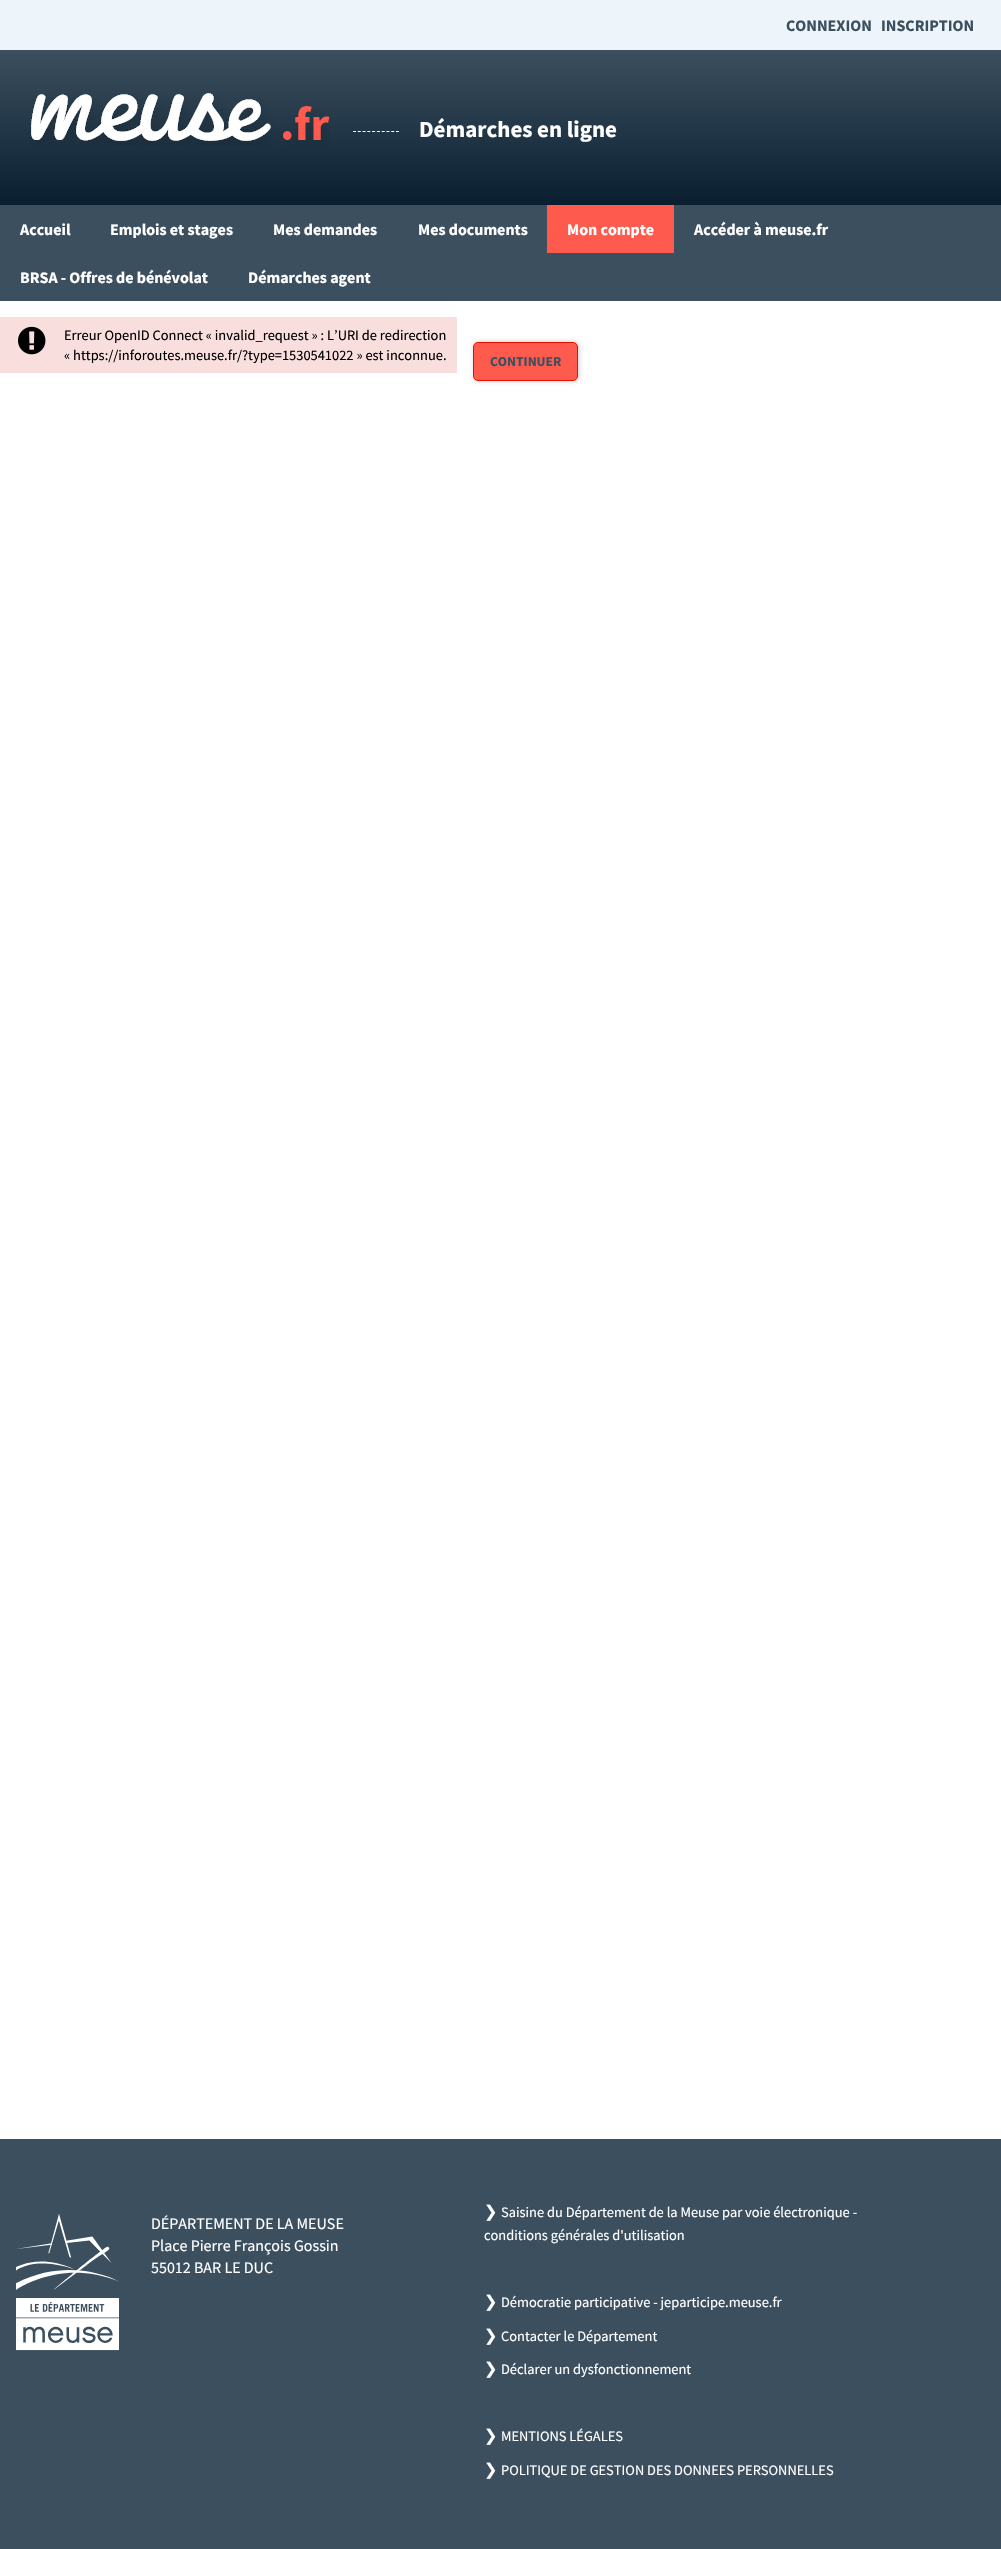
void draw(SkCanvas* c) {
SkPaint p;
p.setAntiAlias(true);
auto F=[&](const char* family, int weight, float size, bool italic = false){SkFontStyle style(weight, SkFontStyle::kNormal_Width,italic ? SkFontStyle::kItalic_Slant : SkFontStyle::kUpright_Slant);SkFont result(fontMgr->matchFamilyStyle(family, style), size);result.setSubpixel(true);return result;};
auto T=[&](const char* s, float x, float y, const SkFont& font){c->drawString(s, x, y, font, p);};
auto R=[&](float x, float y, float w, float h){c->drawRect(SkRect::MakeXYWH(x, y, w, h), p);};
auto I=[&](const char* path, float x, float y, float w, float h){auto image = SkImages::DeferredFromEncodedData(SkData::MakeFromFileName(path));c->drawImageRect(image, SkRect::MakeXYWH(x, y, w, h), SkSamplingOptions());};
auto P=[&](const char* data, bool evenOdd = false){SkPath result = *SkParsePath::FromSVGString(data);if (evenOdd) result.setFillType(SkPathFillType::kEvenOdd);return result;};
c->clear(0xffffffff);
p.setColor(0xffeef5fa);
R(0,0,1001,50);
{
const SkColor colors[] = {0xff3c4f5f,0xff091f30};
const float stops[] = {0,1};
const SkPoint ends[] = {{501,50}, {501,205}};
p.setShader(SkGradientShader::MakeLinear(ends, colors, stops, 2, SkTileMode::kClamp));
p.setAlpha(255);
}
R(0,50,1001,155);
auto f1 = F("Source Sans Pro",700,16);
p.setShader(nullptr);
p.setColor(0xff3c4f5f);
T("CONNEXION",786,31,f1);
T("INSCRIPTION",881,31,f1);
I("1.png",31,93,299,53);
p.setStroke(true);
p.setStrokeWidth(1);
p.setColor(0xffffffff);
p.setPathEffect(SkDashPathEffect::Make({{3,1.78f}}, 0));
c->drawPath(P("M353 131.5h46"),p);
p.setPathEffect(nullptr);
auto f2 = F("Source Sans Pro",700,23);
p.setStroke(false);
T("Démarches en ligne",419,137,f2);
p.setColor(0xff3c4f5f);
R(0,205,1001,96);
p.setColor(0xffffffff);
T("Accueil",20,235,f1);
T("Emplois et stages",110,235,f1);
T("Mes demandes",273,235,f1);
T("Mes documents",418,235,f1);
p.setColor(0xffff5a4e);
R(547,205,127,48);
p.setColor(0xffffffff);
T("Mon compte",567,235,f1);
T("Accéder à meuse.fr",694,235,f1);
T("BRSA - Offres de bénévolat",20,283,f1);
T("Démarches agent",248,283,f1);
p.setColor(0xfff9dede);
R(0,317,457,56);
I("2.png",18,326,28,29);
auto f3 = F("Source Sans Pro",400,14.4);
p.setColor(0xff000000);
T("Erreur OpenID Connect « invalid_request » : L’URI de redirection",64,340,f3);
T("« https://inforoutes.meuse.fr/?type=1530541022 » est inconnue.",64,360,f3);
p.setColor(0x36000000);
p.setMaskFilter(SkMaskFilter::MakeBlur(kNormal_SkBlurStyle, 2.5));
c->drawRoundRect(SkRect::MakeXYWH(474,342,105,39),5,5,p);
p.setMaskFilter(nullptr);
p.setColor(0xffff5a4e);
c->drawRoundRect(SkRect::MakeXYWH(473.5,342.5,104,38),4.5,4.5,p);
p.setStroke(true);
p.setColor(0xffe71000);
c->drawRoundRect(SkRect::MakeXYWH(473.5,342.5,104,38),4.5,4.5,p);
auto f4 = F("Source Sans Pro",700,13.5);
p.setStroke(false);
p.setColor(0xff3c4f5f);
T("CONTINUER",490,366,f4);
R(0,2139,1001,410);
I("3.png",16,2214,103,137);
auto f5 = F("Source Sans Pro",400,16);
p.setColor(0xffffffff);
T("DÉPARTEMENT DE LA MEUSE",151,2229,f5);
T("Place Pierre François Gossin",151,2251,f5);
T("55012 BAR LE DUC",151,2273,f5);
auto f6 = F("DejaVu Sans",400,16);
T("❯",484,2217,f6);
T("Saisine du Département de la Meuse par voie électronique -",501,2217,f3);
T("conditions générales d'utilisation",484,2240,f3);
T("❯",484,2307,f6);
T("Démocratie participative - jeparticipe.meuse.fr",501,2307,f3);
T("❯",484,2341,f6);
T("Contacter le Département",501,2341,f3);
T("❯",484,2374,f6);
T("Déclarer un dysfonctionnement",501,2374,f3);
T("❯",484,2441,f6);
T("MENTIONS LÉGALES",501,2441,f3);
T("❯",484,2475,f6);
T("POLITIQUE DE GESTION DES DONNEES PERSONNELLES",501,2475,f3);
}
